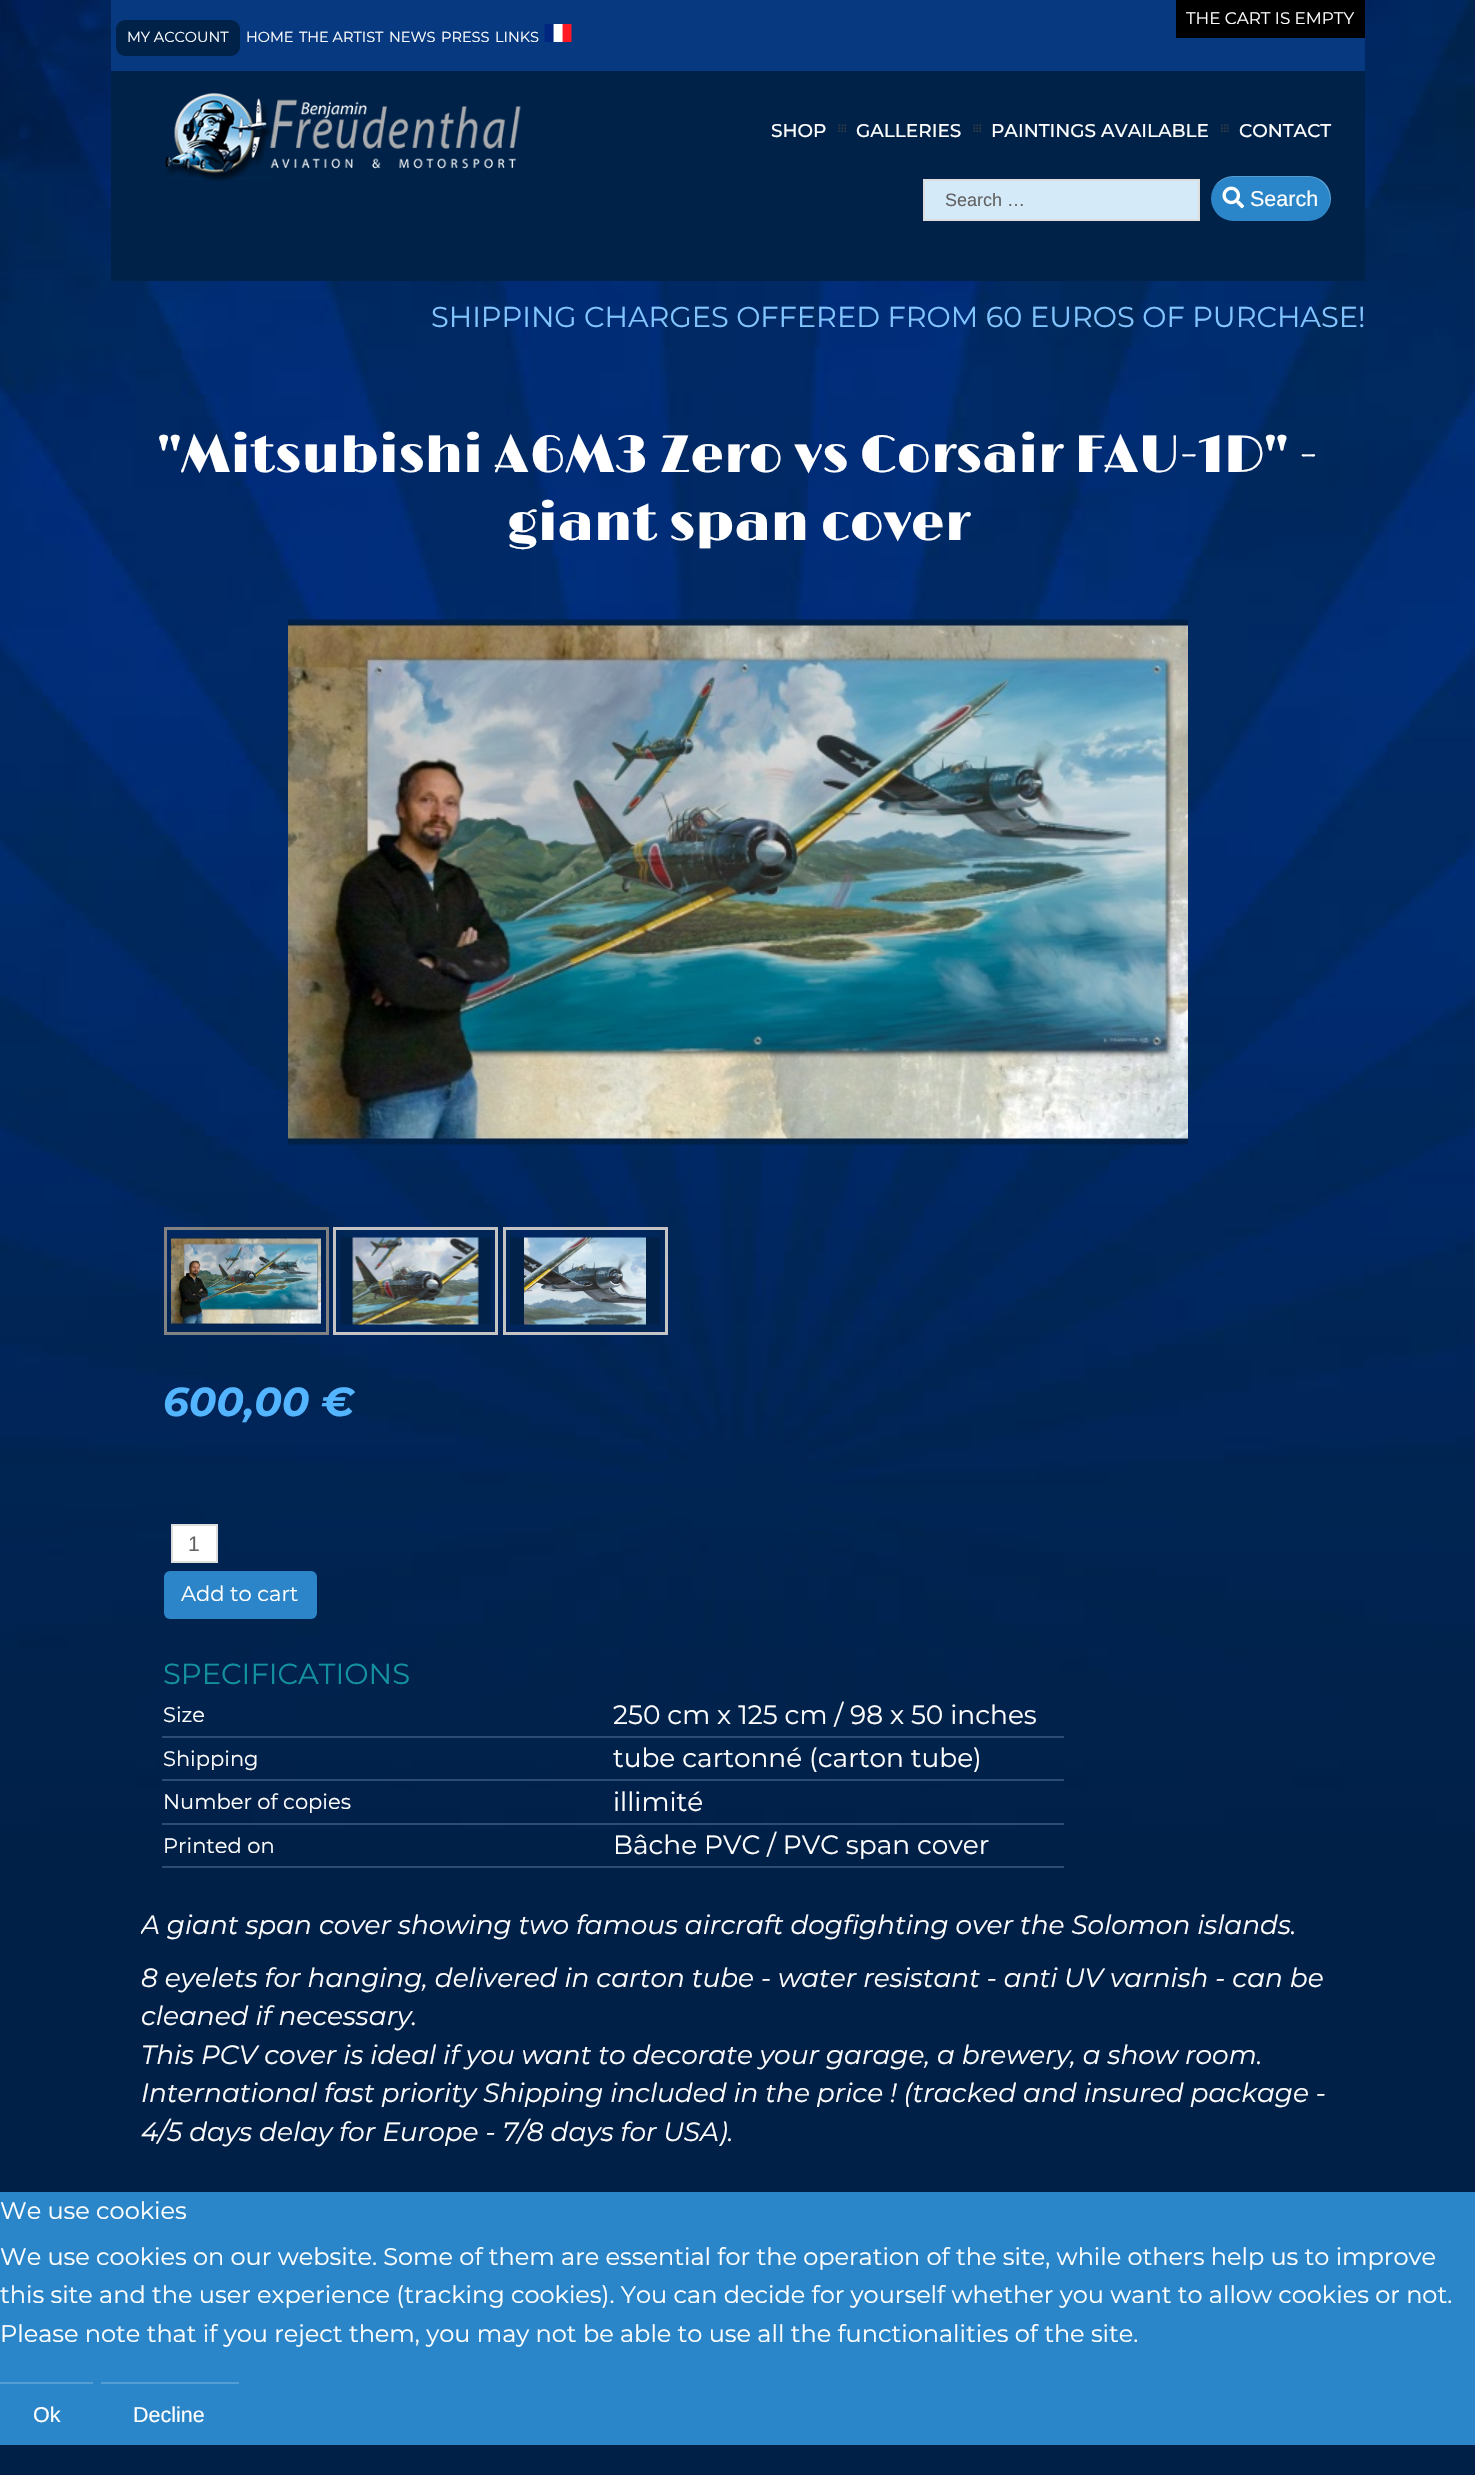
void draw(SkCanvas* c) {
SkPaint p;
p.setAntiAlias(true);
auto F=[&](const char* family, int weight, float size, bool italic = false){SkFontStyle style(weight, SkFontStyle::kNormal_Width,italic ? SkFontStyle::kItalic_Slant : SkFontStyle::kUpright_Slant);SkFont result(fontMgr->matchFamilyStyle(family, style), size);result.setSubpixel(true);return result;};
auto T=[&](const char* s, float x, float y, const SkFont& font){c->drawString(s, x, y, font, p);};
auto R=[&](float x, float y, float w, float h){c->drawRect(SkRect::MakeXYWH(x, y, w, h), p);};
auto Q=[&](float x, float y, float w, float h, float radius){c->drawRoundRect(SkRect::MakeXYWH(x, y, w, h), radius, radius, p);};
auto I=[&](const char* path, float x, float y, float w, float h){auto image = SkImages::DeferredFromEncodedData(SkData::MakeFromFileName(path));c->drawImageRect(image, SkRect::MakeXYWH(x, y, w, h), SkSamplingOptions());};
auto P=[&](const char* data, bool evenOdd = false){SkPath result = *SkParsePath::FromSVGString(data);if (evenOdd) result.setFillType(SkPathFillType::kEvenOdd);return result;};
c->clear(0xffffffff);
I("1.png",0,0,1475,2475);
p.setColor(0xff002248);
R(111,71,1254,210);
p.setColor(0xff073980);
R(111,0,1254,71);
p.setColor(0xff000000);
R(1176,0,189,38);
auto f1 = F("Montserrat",400,16.75);
p.setColor(0xffffffff);
T("THE CART IS EMPTY",1186,24,f1);
p.setColor(0xff002248);
Q(116,20,124,36,9);
auto f2 = F("Montserrat",400,14.5);
p.setColor(0xffffffff);
T("MY ACCOUNT",127,42,f2);
T("HOME",246,42,f2);
T("THE ARTIST",299,42,f2);
T("NEWS",389,42,f2);
T("PRESS",441,42,f2);
T("LINKS",495,42,f2);
I("2.png",544,24,28,18);
I("3.png",165,93,356,88);
auto f3 = F("Montserrat",500,18.5);
T("SHOP",771,137,f3);
I("4.png",838,124,8,8);
T("GALLERIES",856,137,f3);
I("4.png",973,124,8,8);
T("PAINTINGS AVAILABLE",991,137,f3);
I("5.png",1221,124,8,8);
T("CONTACT",1239,137,f3);
p.setColor(0xffd5eaf9);
c->drawRect(SkRect::MakeXYWH(924,180,275,40),p);
p.setStroke(true);
p.setStrokeWidth(2);
p.setColor(0xffdddddd);
c->drawRect(SkRect::MakeXYWH(924,180,275,40),p);
auto f4 = F("Liberation Sans",400,18);
p.setStroke(false);
p.setColor(0xff636363);
T("Search …",945,206,f4);
p.setColor(0xff2a86c8);
Q(1211,176,120,45,22.5);
p.setColor(0x33ffffff);
c->drawPath(P("M1233 177h75c12 0 22 10 22 23c0 5-2 10-5 13c4-4 6-9 6-15c0-12-10-22-23-22h-74c-9 0-16 4-20 11c5-6 12-10 19-10z"),p);
I("6.png",1222,186,23,23);
auto f5 = F("Liberation Sans",400,21.5);
p.setColor(0xffffffff);
T("Search",1250,206,f5);
auto f6 = F("Montserrat",400,28.8);
p.setColor(0xff82c5ff);
T("SHIPPING CHARGES OFFERED FROM 60 EUROS OF PURCHASE!",431,327,f6);
auto f7 = F("Limelight",400,52.8);
p.setColor(0xffffffff);
T("\"Mitsubishi A6M3 Zero vs Corsair FAU-1D\" -",158,472,f7);
T("giant span cover",507,540,f7);
I("7.png",288,619,900,526);
p.setStroke(true);
p.setStrokeWidth(3);
p.setColor(0xff828282);
c->drawRect(SkRect::MakeXYWH(165.5,1228.5,162,105),p);
I("8.png",171,1237,150,88);
p.setColor(0xffc4c4c4);
c->drawRect(SkRect::MakeXYWH(334.5,1228.5,162,105),p);
I("9.png",340,1237,151,88);
c->drawRect(SkRect::MakeXYWH(504.5,1228.5,162,105),p);
I("10.png",510,1237,150,88);
auto f8 = F("Montserrat",700,40.5,true);
p.setStroke(false);
p.setColor(0xff53b5ff);
T("600,00 €",163,1416,f8);
p.setColor(0xffffffff);
c->drawRect(SkRect::MakeXYWH(172,1525,45,37),p);
p.setStroke(true);
p.setStrokeWidth(2);
p.setColor(0xffdddddd);
c->drawRect(SkRect::MakeXYWH(172,1525,45,37),p);
auto f9 = F("Liberation Sans",400,21);
p.setStroke(false);
p.setColor(0xff636363);
T("1",188,1551,f9);
p.setColor(0xff2b85c8);
Q(164,1571,153,48,6);
auto f10 = F("Montserrat",400,21);
p.setColor(0xffffffff);
T("Add to cart",181,1601,f10);
auto f11 = F("Montserrat",400,29);
p.setColor(0xff1491a0);
T("SPECIFICATIONS",163,1684,f11);
p.setColor(0xffffffff);
T("Size",163,1722,f10);
p.setColor(0xff2f4c74);
R(162,1736,902,2);
auto f12 = F("Montserrat",400,26.4);
p.setColor(0xffffffff);
T("250 cm x 125 cm / 98 x 50 inches",613,1724,f12);
T("Shipping",163,1766,f10);
p.setColor(0xff2f4c74);
R(162,1779,902,2);
p.setColor(0xffffffff);
T("tube cartonné (carton tube)",613,1767,f12);
T("Number of copies",163,1809,f10);
p.setColor(0xff2f4c74);
R(162,1823,902,2);
p.setColor(0xffffffff);
T("illimité",613,1811,f12);
T("Printed on",163,1853,f10);
p.setColor(0xff2f4c74);
R(162,1866,902,2);
p.setColor(0xffffffff);
T("Bâche PVC / PVC span cover",613,1854,f12);
c->save();
c->clipRect(SkRect::MakeXYWH(141,422,1194,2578));
auto f13 = F("Montserrat",400,26.4,true);
T("A giant span cover showing two famous aircraft dogfighting over the Solomon islands.",141,1934,f13);
c->restore();
T("8 eyelets for hanging, delivered in carton tube - water resistant - anti UV varnish - can be",141,1987,f13);
T("cleaned if necessary.",141,2025,f13);
T("This PCV cover is ideal if you want to decorate your garage, a brewery, a show room.",141,2064,f13);
T("International fast priority Shipping included in the price ! (tracked and insured package -",141,2102,f13);
T("4/5 days delay for Europe - 7/8 days for USA).",141,2141,f13);
p.setColor(0xff2a86c8);
R(0,2192,1475,253);
auto f14 = F("Montserrat",400,24);
p.setColor(0xffffffff);
T("We use cookies",0,2219,f14);
T("We use cookies on our website. Some of them are essential for the operation of the site, while others help us to improve",0,2265,f14);
T("this site and the user experience (tracking cookies). You can decide for yourself whether you want to allow cookies or not.",0,2303,f14);
T("Please note that if you reject them, you may not be able to use all the functionalities of the site.",0,2342,f14);
p.setColor(0xff559ed3);
R(0,2382,93,2);
p.setColor(0xffffffff);
T("Ok",33,2422,f5);
p.setColor(0xff559ed3);
R(101,2382,138,2);
p.setColor(0xffffffff);
T("Decline",133,2422,f5);
}
